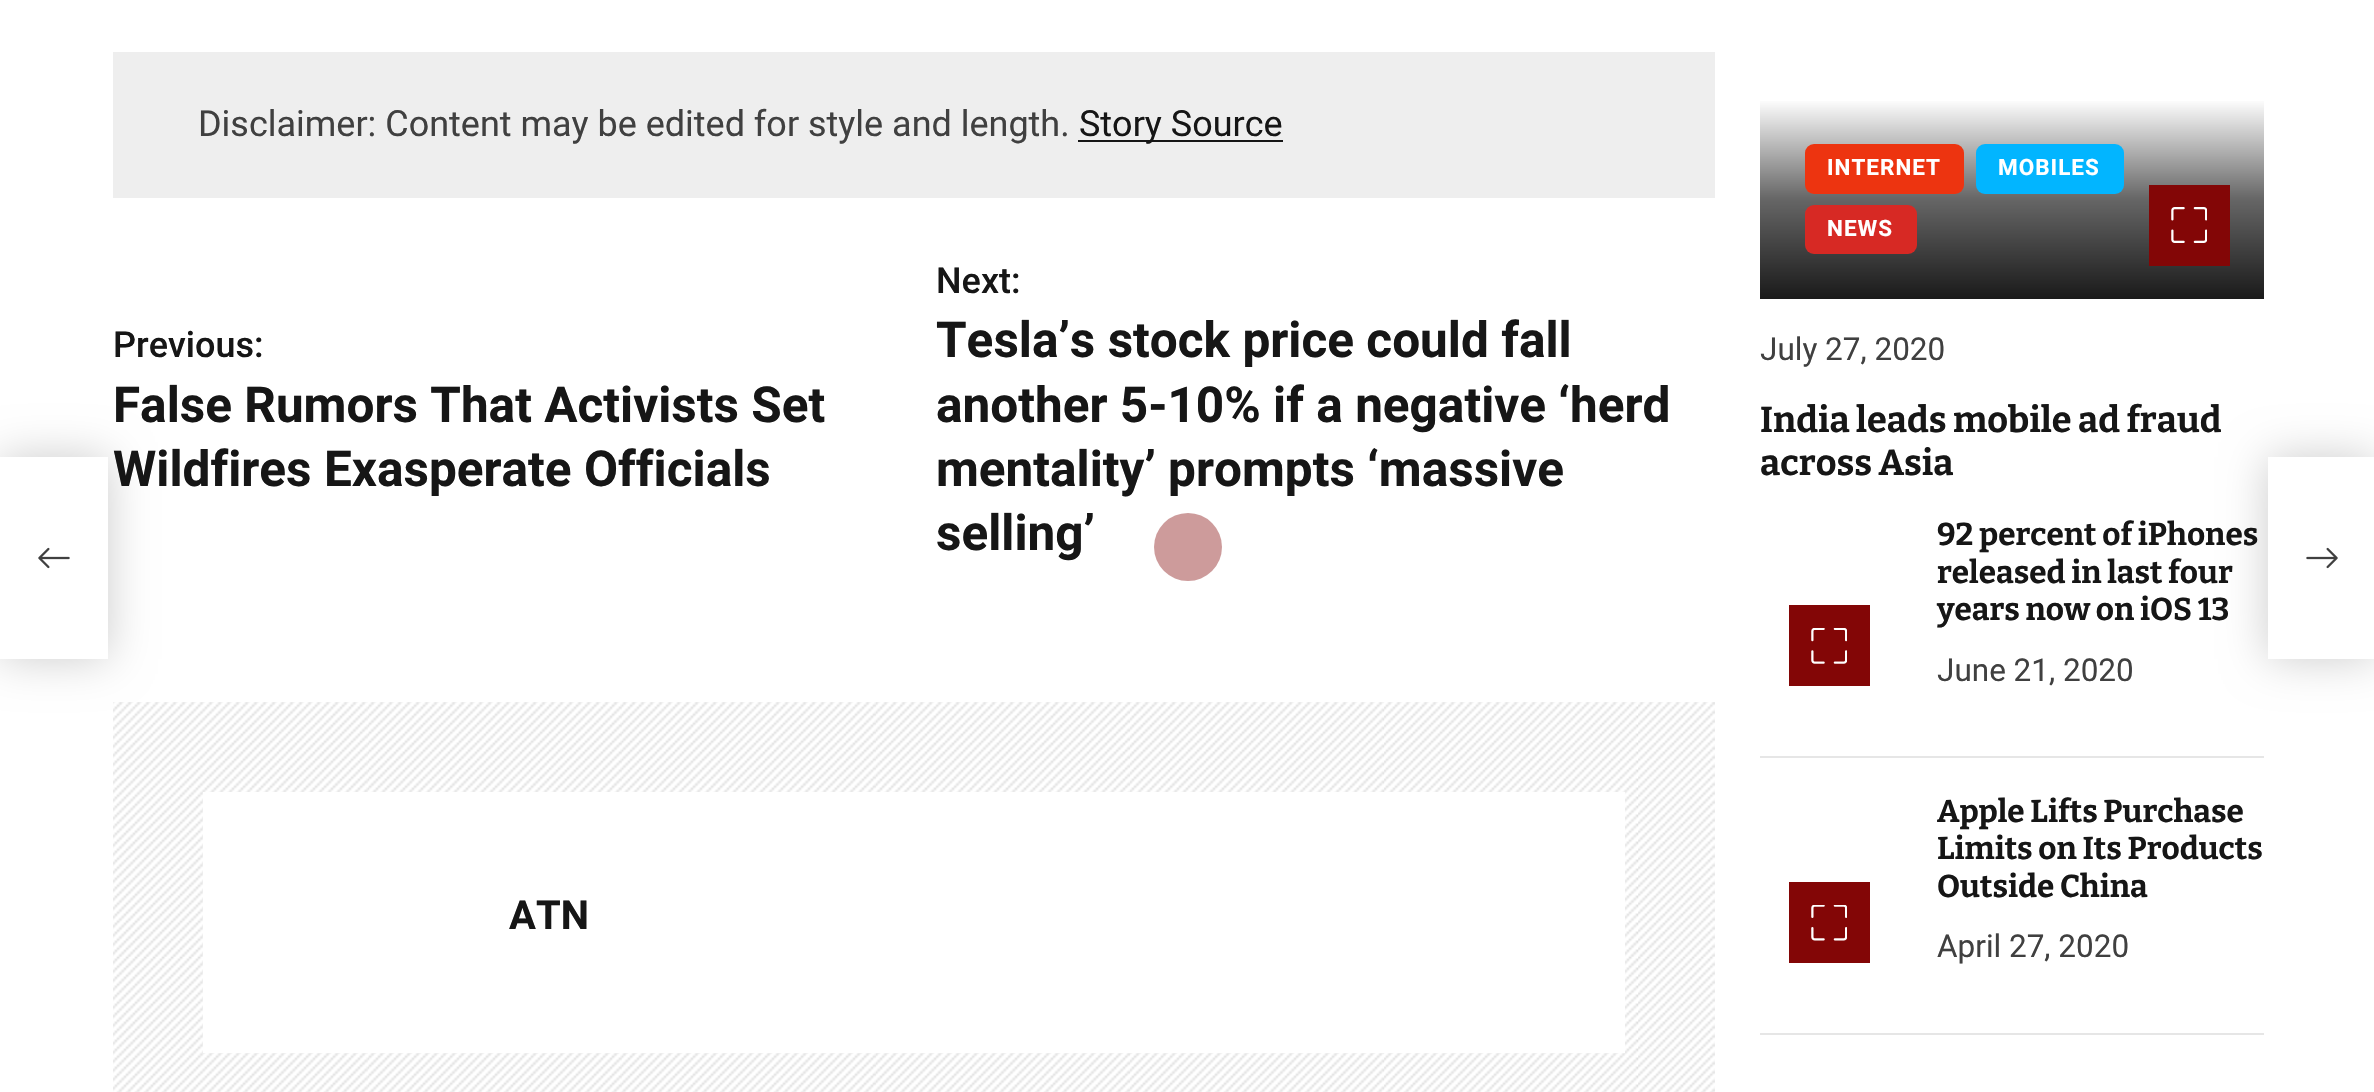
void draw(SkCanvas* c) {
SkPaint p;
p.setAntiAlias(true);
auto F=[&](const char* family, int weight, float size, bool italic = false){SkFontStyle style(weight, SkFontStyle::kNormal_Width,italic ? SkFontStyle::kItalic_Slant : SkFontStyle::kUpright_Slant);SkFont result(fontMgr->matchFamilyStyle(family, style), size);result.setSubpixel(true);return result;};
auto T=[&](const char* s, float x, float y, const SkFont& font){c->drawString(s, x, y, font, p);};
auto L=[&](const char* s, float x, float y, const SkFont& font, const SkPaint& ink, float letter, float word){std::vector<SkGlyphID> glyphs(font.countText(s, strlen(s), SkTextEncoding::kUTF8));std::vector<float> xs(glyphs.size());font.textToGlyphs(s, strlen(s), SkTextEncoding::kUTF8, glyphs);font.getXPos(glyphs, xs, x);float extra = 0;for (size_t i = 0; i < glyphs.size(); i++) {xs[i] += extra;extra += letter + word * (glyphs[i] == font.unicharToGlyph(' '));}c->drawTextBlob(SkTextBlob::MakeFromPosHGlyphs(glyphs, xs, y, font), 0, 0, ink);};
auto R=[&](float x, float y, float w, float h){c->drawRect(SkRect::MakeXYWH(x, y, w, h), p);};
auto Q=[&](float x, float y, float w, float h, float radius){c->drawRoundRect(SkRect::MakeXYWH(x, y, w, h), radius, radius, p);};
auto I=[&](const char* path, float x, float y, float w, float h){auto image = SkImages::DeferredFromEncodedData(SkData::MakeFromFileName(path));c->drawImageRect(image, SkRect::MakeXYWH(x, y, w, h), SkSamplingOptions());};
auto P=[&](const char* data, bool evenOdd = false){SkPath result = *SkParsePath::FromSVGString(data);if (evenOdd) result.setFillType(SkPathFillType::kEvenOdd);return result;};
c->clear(0xffffffff);
p.setColor(0xffeeeeee);
R(113,52,1602,146);
auto f1 = F("Roboto",400,36);
p.setColor(0xff404040);
T("Disclaimer: Content may be edited for style and length.",198,136,f1);
p.setColor(0xff161616);
R(1078,140,205,2);
T("Story Source",1079,136,f1);
auto f2 = F("Roboto",500,36);
T("Previous:",113,357,f2);
auto f3 = F("Roboto",700,49.5);
T("False Rumors That Activists Set",113,422,f3);
T("Wildfires Exasperate Officials",113,486,f3);
T("Next:",936,293,f2);
T("Tesla’s stock price could fall",936,357,f3);
T("another 5-10% if a negative ‘herd",936,422,f3);
T("mentality’ prompts ‘massive",936,486,f3);
T("selling’",936,550,f3);
I("1.png",113,702,1602,390);
p.setColor(0xffffffff);
R(203,792,1422,261);
auto f4 = F("Roboto",700,40);
p.setColor(0xff161616);
T("ATN",509,929,f4);
{
const SkColor colors[] = {0xffffffff,0xff666666,0xff1a1a1a};
const float stops[] = {0,.5,1};
const SkPoint ends[] = {{2012,99}, {2012,299}};
p.setShader(SkGradientShader::MakeLinear(ends, colors, stops, 3, SkTileMode::kClamp));
p.setAlpha(255);
}
R(1760,101,504,198);
p.setShader(nullptr);
p.setColor(0xffed3410);
Q(1805,144,159,50,9);
auto f5 = F("Roboto",700,22.5);
p.setColor(0xffffffff);
L("INTERNET",1827,175,f5,p,1,0);
p.setColor(0xff02b5ff);
Q(1976,144,148,50,9);
p.setColor(0xffffffff);
L("MOBILES",1998,175,f5,p,1,0);
p.setColor(0xffd72924);
Q(1805,205,112,49,9);
p.setColor(0xffffffff);
L("NEWS",1827,236,f5,p,1,0);
p.setColor(0xff830606);
R(2149,185,81,81);
I("2.png",2171,207,36,36);
auto f6 = F("Roboto",400,31.5);
p.setColor(0xff404040);
T("July 27, 2020",1760,360,f6);
auto f7 = F("Bitter",700,36);
p.setColor(0xff161616);
T("India leads mobile ad fraud",1760,432,f7);
T("across Asia",1760,475,f7);
p.setColor(0xffe6e6e6);
R(1760,756,504,2);
p.setColor(0xff830606);
R(1789,605,81,81);
I("3.png",1811,628,36,36);
auto f8 = F("Bitter",700,31.5);
p.setColor(0xff161616);
T("92 percent of iPhones",1937,545,f8);
T("released in last four",1937,583,f8);
T("years now on iOS 13",1937,620,f8);
p.setColor(0xff404040);
T("June 21, 2020",1937,681,f6);
p.setColor(0xffe6e6e6);
R(1760,1033,504,2);
p.setColor(0xff830606);
R(1789,882,81,81);
I("4.png",1811,905,36,36);
p.setColor(0xff161616);
T("Apple Lifts Purchase",1937,822,f8);
T("Limits on Its Products",1937,859,f8);
T("Outside China",1937,897,f8);
p.setColor(0xff404040);
T("April 27, 2020",1937,957,f6);
c->save();
c->clipPath(P("M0 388h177v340h-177zm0 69h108v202h-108z",true),true);
p.setColor(0x33000000);
p.setMaskFilter(SkMaskFilter::MakeBlur(kNormal_SkBlurStyle, 22.5));
c->drawRect(SkRect::MakeXYWH(0,457,108,202),p);
p.setMaskFilter(nullptr);
c->restore();
I("5.png",38,547,32,22);
p.setMaskFilter(SkMaskFilter::MakeBlur(kNormal_SkBlurStyle, 22.5));
c->drawRect(SkRect::MakeXYWH(2268,457,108,202),p);
p.setMaskFilter(nullptr);
p.setColor(0xffffffff);
R(2268,457,106,202);
I("6.png",2306,547,32,22);
p.setColor(0xffcd9b9b);
c->drawCircle(1188,547,34,p);
}
